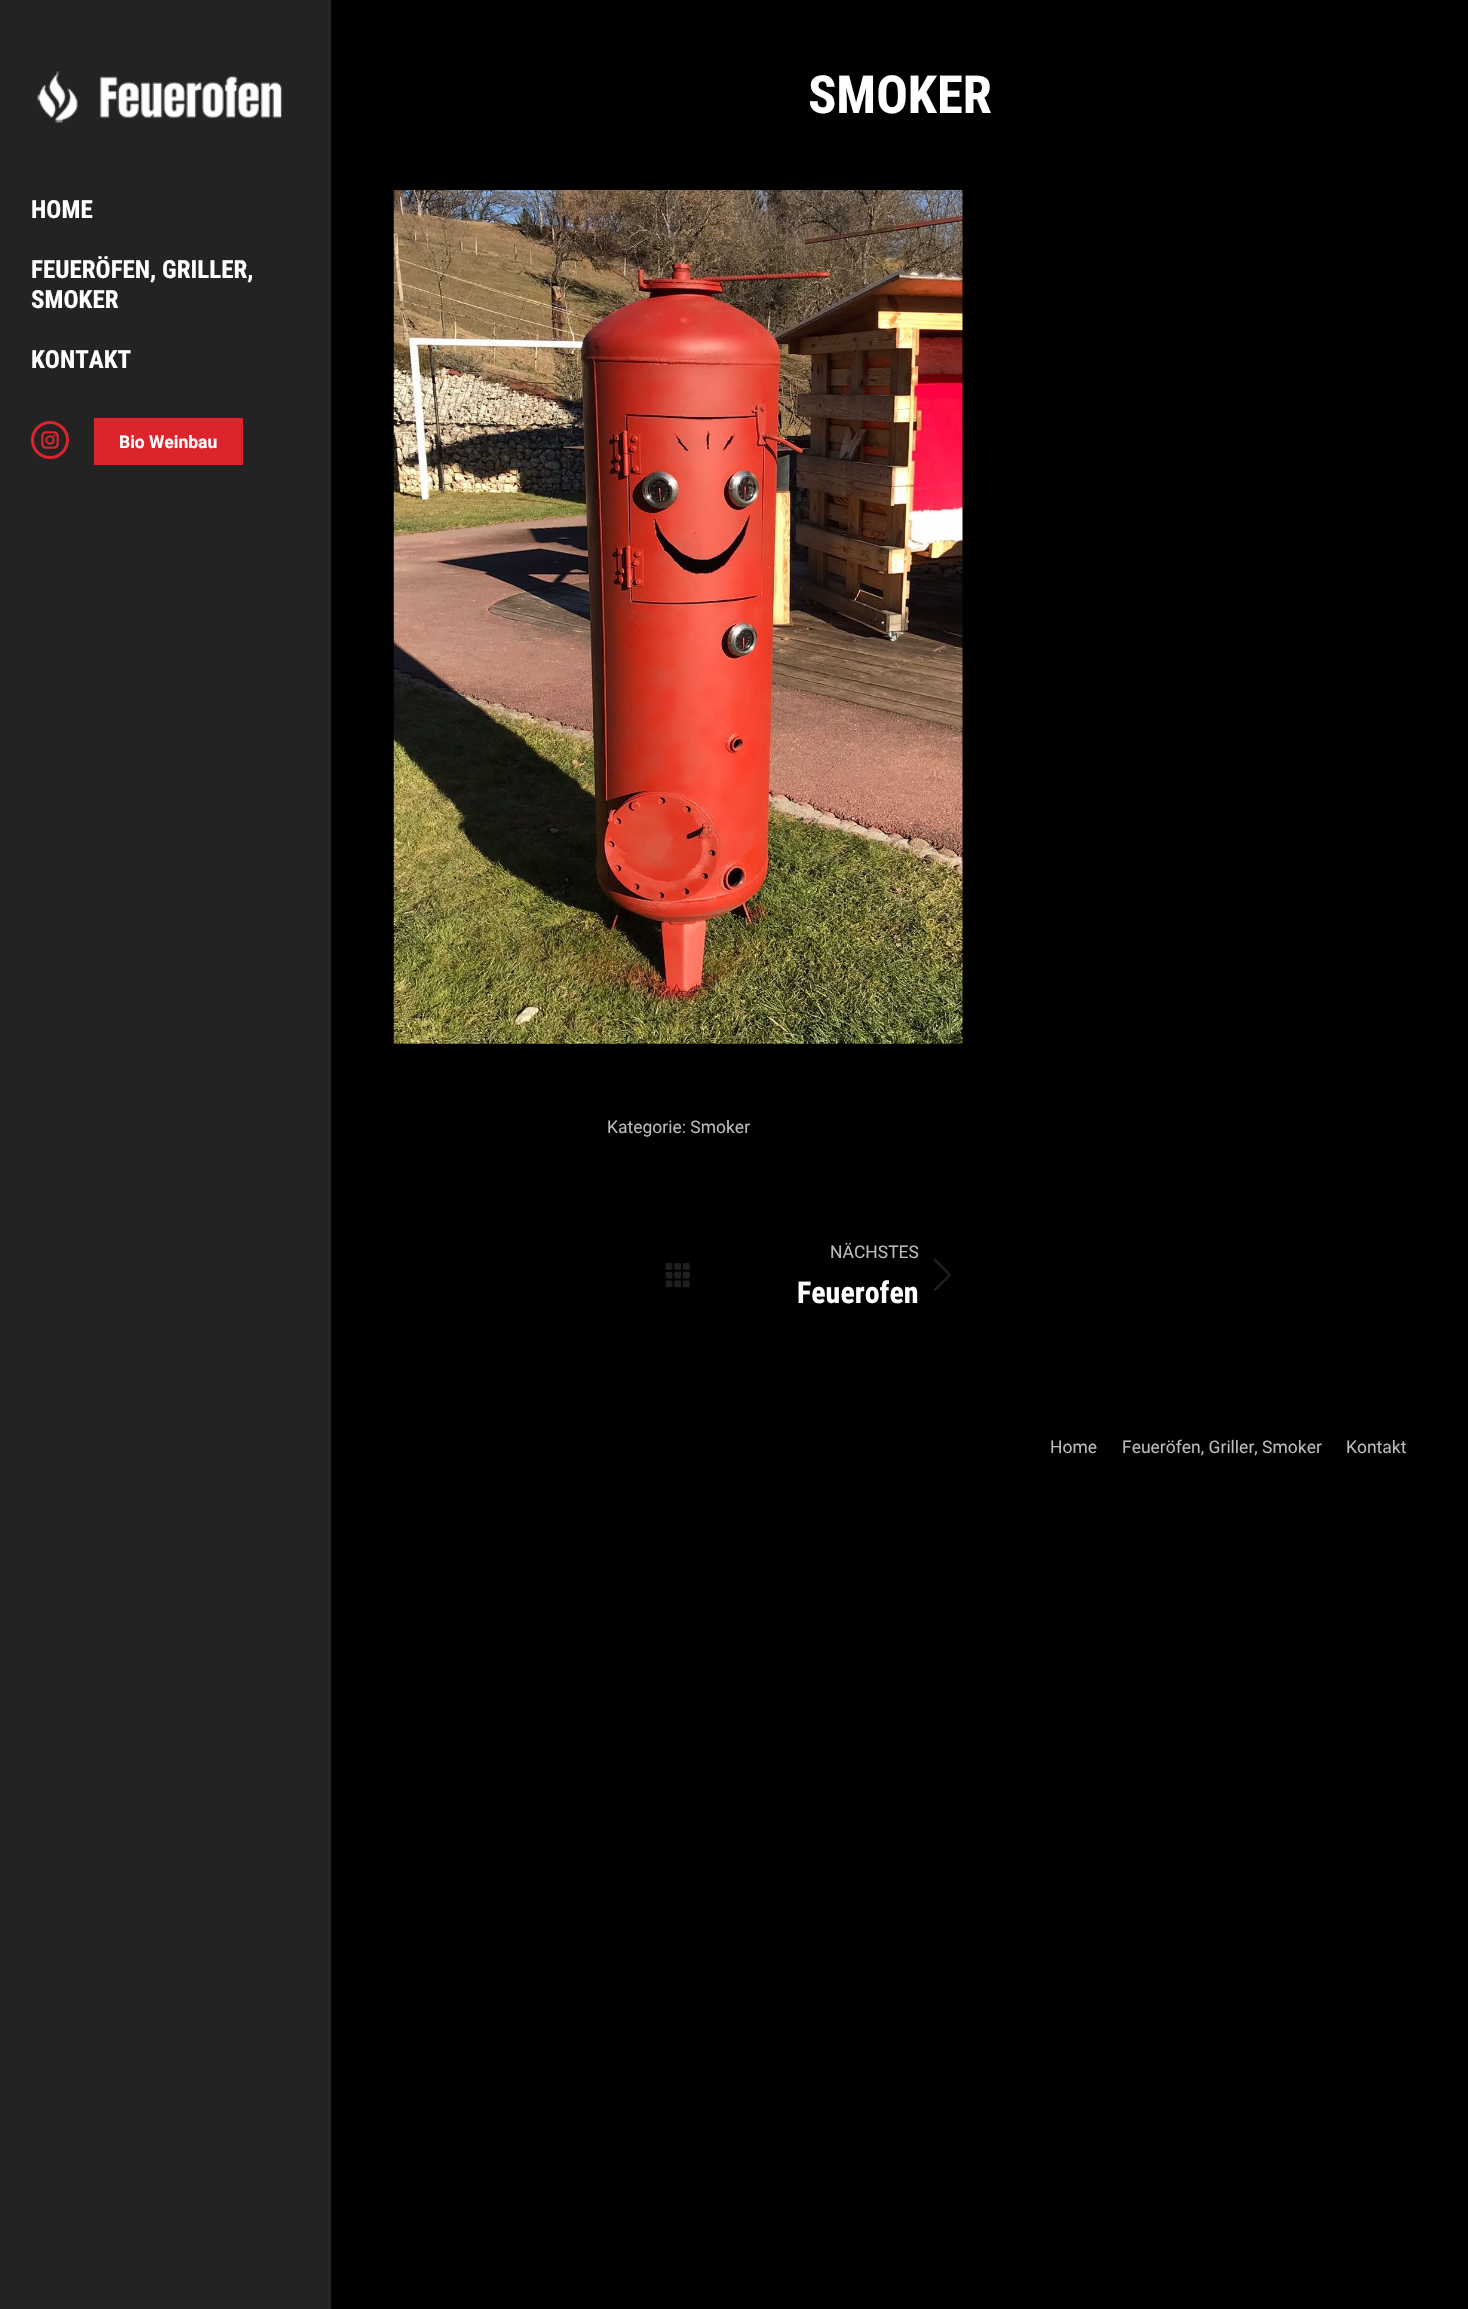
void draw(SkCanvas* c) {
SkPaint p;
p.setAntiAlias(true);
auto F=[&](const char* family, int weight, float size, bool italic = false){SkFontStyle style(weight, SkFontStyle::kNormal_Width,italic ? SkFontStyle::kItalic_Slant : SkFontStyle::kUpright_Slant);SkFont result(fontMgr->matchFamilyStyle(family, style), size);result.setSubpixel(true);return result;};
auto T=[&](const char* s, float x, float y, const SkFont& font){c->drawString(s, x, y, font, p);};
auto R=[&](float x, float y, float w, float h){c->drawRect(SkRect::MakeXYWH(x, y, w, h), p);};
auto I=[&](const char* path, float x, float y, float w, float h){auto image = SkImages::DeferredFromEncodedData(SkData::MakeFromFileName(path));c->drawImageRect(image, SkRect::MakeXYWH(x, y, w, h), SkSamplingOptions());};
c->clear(0xff000000);
auto f1 = F("Roboto Condensed",700,52.5);
p.setColor(0xffffffff);
T("SMOKER",808,113,f1);
p.setColor(0xff232323);
R(0,0,331,2309);
I("1.png",37,71,245,52);
auto f2 = F("Roboto Condensed",700,25);
p.setColor(0xffffffff);
T("HOME",31,218,f2);
T("FEUERÖFEN, GRILLER,",31,278,f2);
T("SMOKER",31,308,f2);
T("KONTAKT",31,368,f2);
p.setStroke(true);
p.setStrokeWidth(3);
p.setColor(0xffdc242d);
c->drawCircle(50,440,17.5,p);
I("2.png",41,431,18,18);
p.setStroke(false);
R(94,418,149,47);
auto f3 = F("Roboto",700,17.5);
p.setColor(0xffffffff);
T("Bio Weinbau",119,448,f3);
I("3.png",393,190,570,854);
auto f4 = F("Roboto",400,17.5);
p.setColor(0xffbbbbbb);
T("Kategorie: Smoker",607,1133,f4);
I("4.png",665,1263,25,25);
T("NÄCHSTES",830,1258,f4);
auto f5 = F("Roboto Condensed",700,30);
p.setColor(0xffffffff);
T("Feuerofen",797,1303,f5);
I("5.png",933,1258,18,33);
p.setColor(0xffbbbbbb);
T("Home",1050,1453,f4);
T("Feueröfen, Griller, Smoker",1122,1453,f4);
T("Kontakt",1346,1453,f4);
}
